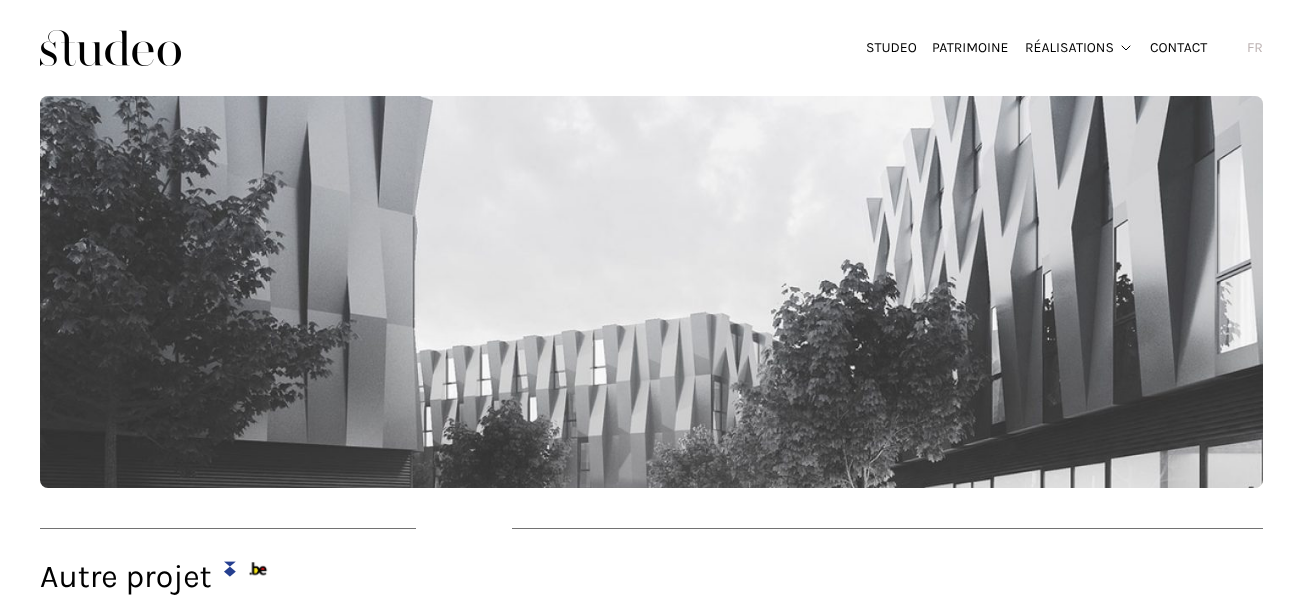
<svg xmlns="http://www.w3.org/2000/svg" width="1303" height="608">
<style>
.a{font:14px Karla;fill:#000}
.b{font:14px Karla;fill:#bcb2b2}
.c{font:32px Karla;fill:#000}
</style>
<rect width="100%" height="100%" fill="#fff"/>
<image href="1.png" x="40" y="30" width="141" height="36"/>
<path fill="none" stroke="#000" stroke-linecap="round" stroke-linejoin="round" d="M1122 46l4 4l4-4"/>
<rect fill="#f8f4e9" x="40" y="96" width="1223" height="392" rx="8"/>
<image href="2.png" x="40" y="96" width="1223" height="392"/>
<path fill="#727272" d="M512 528h751v1H512z"/>
<path fill="#727272" d="M40 528h376v1H40z"/>
<image href="3.png" x="224" y="561" width="12" height="16"/>
<image href="4.png" x="249" y="562" width="19" height="14"/>
<text class="a" x="866" y="52">STUDEO</text>
<text class="a" x="932" y="52">PATRIMOINE</text>
<text class="a" x="1025" y="52">RÉALISATIONS</text>
<text class="a" x="1150" y="52">CONTACT</text>
<text class="b" x="1247" y="52">FR</text>
<text class="c" x="40" y="587">Autre projet</text>
</svg>
